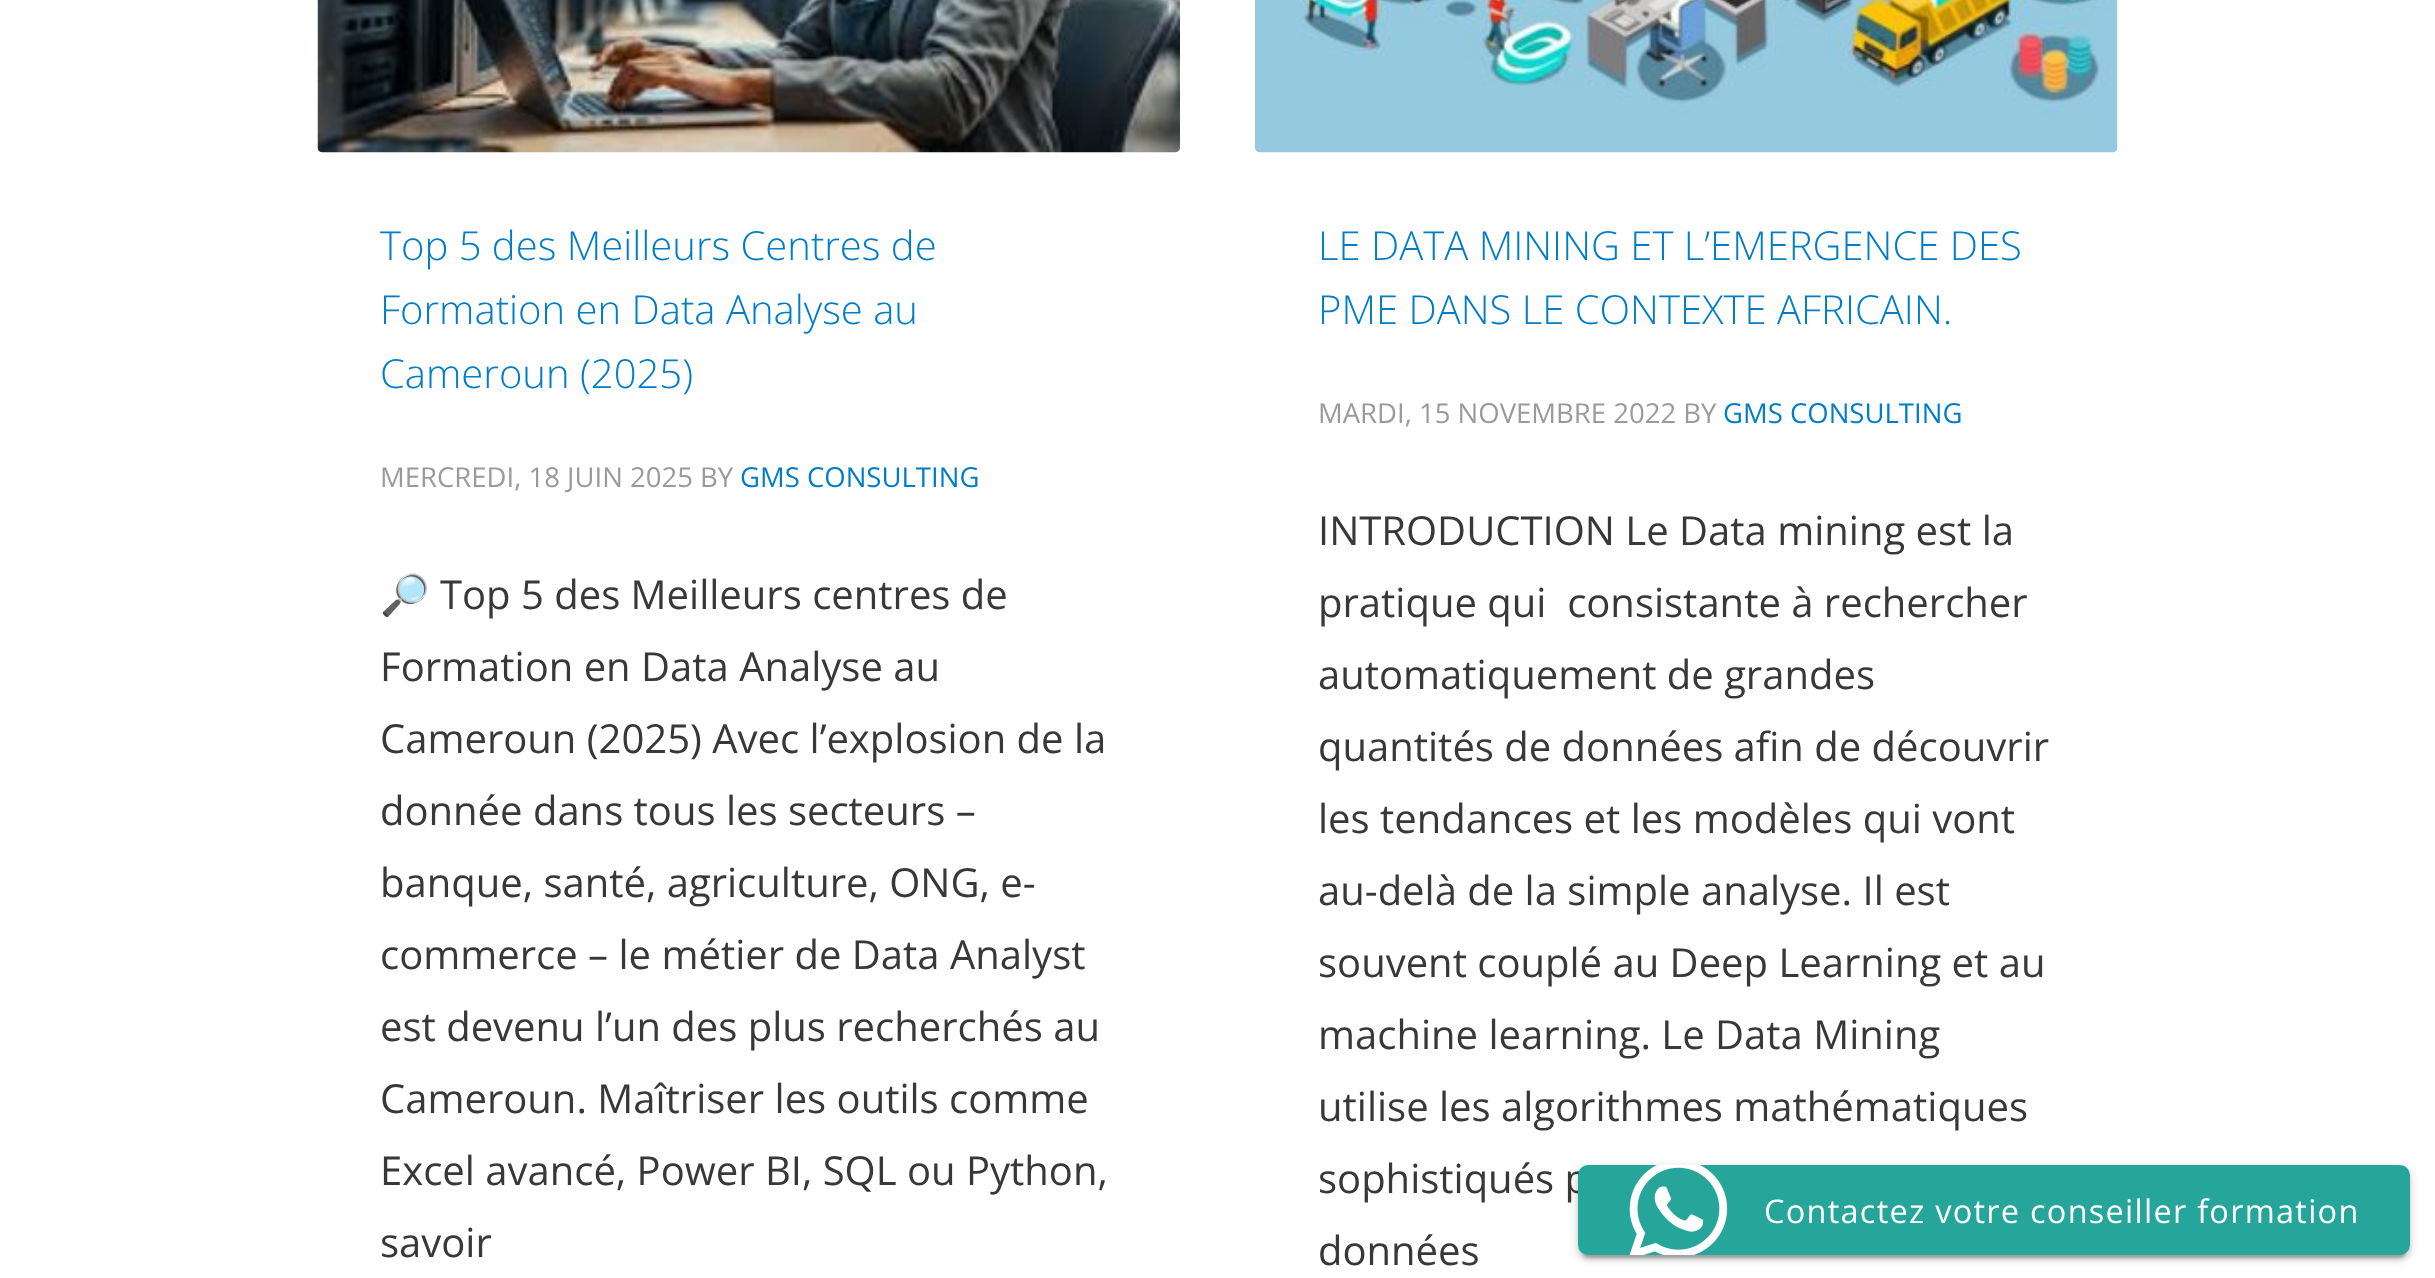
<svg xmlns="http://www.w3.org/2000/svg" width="2435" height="1278">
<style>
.a{font:300 40px Open Sans;fill:#007dc6}
.b{font:27.5px Open Sans;fill:#9a9a9a}
.c{font:27.5px Open Sans;fill:#007dc6}
.d{font:40px Noto Color Emoji;fill:#383838}
.e{font:40px Open Sans;fill:#383838}
.f{font:32.5px Open Sans;letter-spacing:1.25px;fill:#fff}
</style>
<rect width="100%" height="100%" fill="#fff"/>
<image href="1.png" x="317" y="0" width="863" height="153"/>
<image href="2.png" x="1255" y="0" width="863" height="153"/>
<rect fill="#00000033" filter="blur(1px)" x="1583" y="1178" width="822" height="80" rx="5"/>
<rect fill="#0000001f" filter="blur(6px)" x="1578" y="1168" width="832" height="90" rx="10"/>
<rect fill="#00000024" filter="blur(2.5px)" x="1578" y="1170" width="832" height="90" rx="10"/>
<text class="a" x="380" y="260">Top 5 des Meilleurs Centres de</text>
<text class="a" x="380" y="324">Formation en Data Analyse au</text>
<text class="a" x="380" y="388">Cameroun (2025)</text>
<text class="b" x="380" y="487">MERCREDI, 18 JUIN 2025 BY</text>
<text class="c" x="740" y="487">GMS CONSULTING</text>
<text class="d" x="380" y="609">🔎</text>
<text class="e" x="440" y="609">Top 5 des Meilleurs centres de</text>
<text class="e" x="380" y="681">Formation en Data Analyse au</text>
<text class="e" x="380" y="753">Cameroun (2025) Avec l’explosion de la</text>
<text class="e" x="380" y="825">donnée dans tous les secteurs –</text>
<text class="e" x="380" y="897">banque, santé, agriculture, ONG, e-</text>
<text class="e" x="380" y="969">commerce – le métier de Data Analyst</text>
<text class="e" x="380" y="1041">est devenu l’un des plus recherchés au</text>
<text class="e" x="380" y="1113">Cameroun. Maîtriser les outils comme</text>
<text class="e" x="380" y="1185">Excel avancé, Power BI, SQL ou Python,</text>
<text class="e" x="380" y="1257">savoir</text>
<text class="a" x="1318" y="260">LE DATA MINING ET L’EMERGENCE DES</text>
<text class="a" x="1318" y="324">PME DANS LE CONTEXTE AFRICAIN.</text>
<text class="b" x="1318" y="423">MARDI, 15 NOVEMBRE 2022 BY</text>
<text class="c" x="1723" y="423">GMS CONSULTING</text>
<text class="e" x="1318" y="545">INTRODUCTION Le Data mining est la</text>
<text class="e" xml:space="preserve" x="1318" y="617">pratique qui  consistante à rechercher</text>
<text class="e" x="1318" y="689">automatiquement de grandes</text>
<text class="e" x="1318" y="761">quantités de données afin de découvrir</text>
<text class="e" x="1318" y="833">les tendances et les modèles qui vont</text>
<text class="e" x="1318" y="905">au-delà de la simple analyse. Il est</text>
<text class="e" x="1318" y="977">souvent couplé au Deep Learning et au</text>
<text class="e" x="1318" y="1049">machine learning. Le Data Mining</text>
<text class="e" x="1318" y="1121">utilise les algorithmes mathématiques</text>
<text class="e" x="1318" y="1193">sophistiqués p</text>
<text class="e" x="1318" y="1265">données</text>
<rect fill="#26a69a" x="1578" y="1165" width="832" height="90" rx="10"/>
<image href="3.png" x="1629" y="1165" width="99" height="90"/>
<text class="f" x="1764" y="1223">Contactez votre conseiller formation</text>
</svg>
